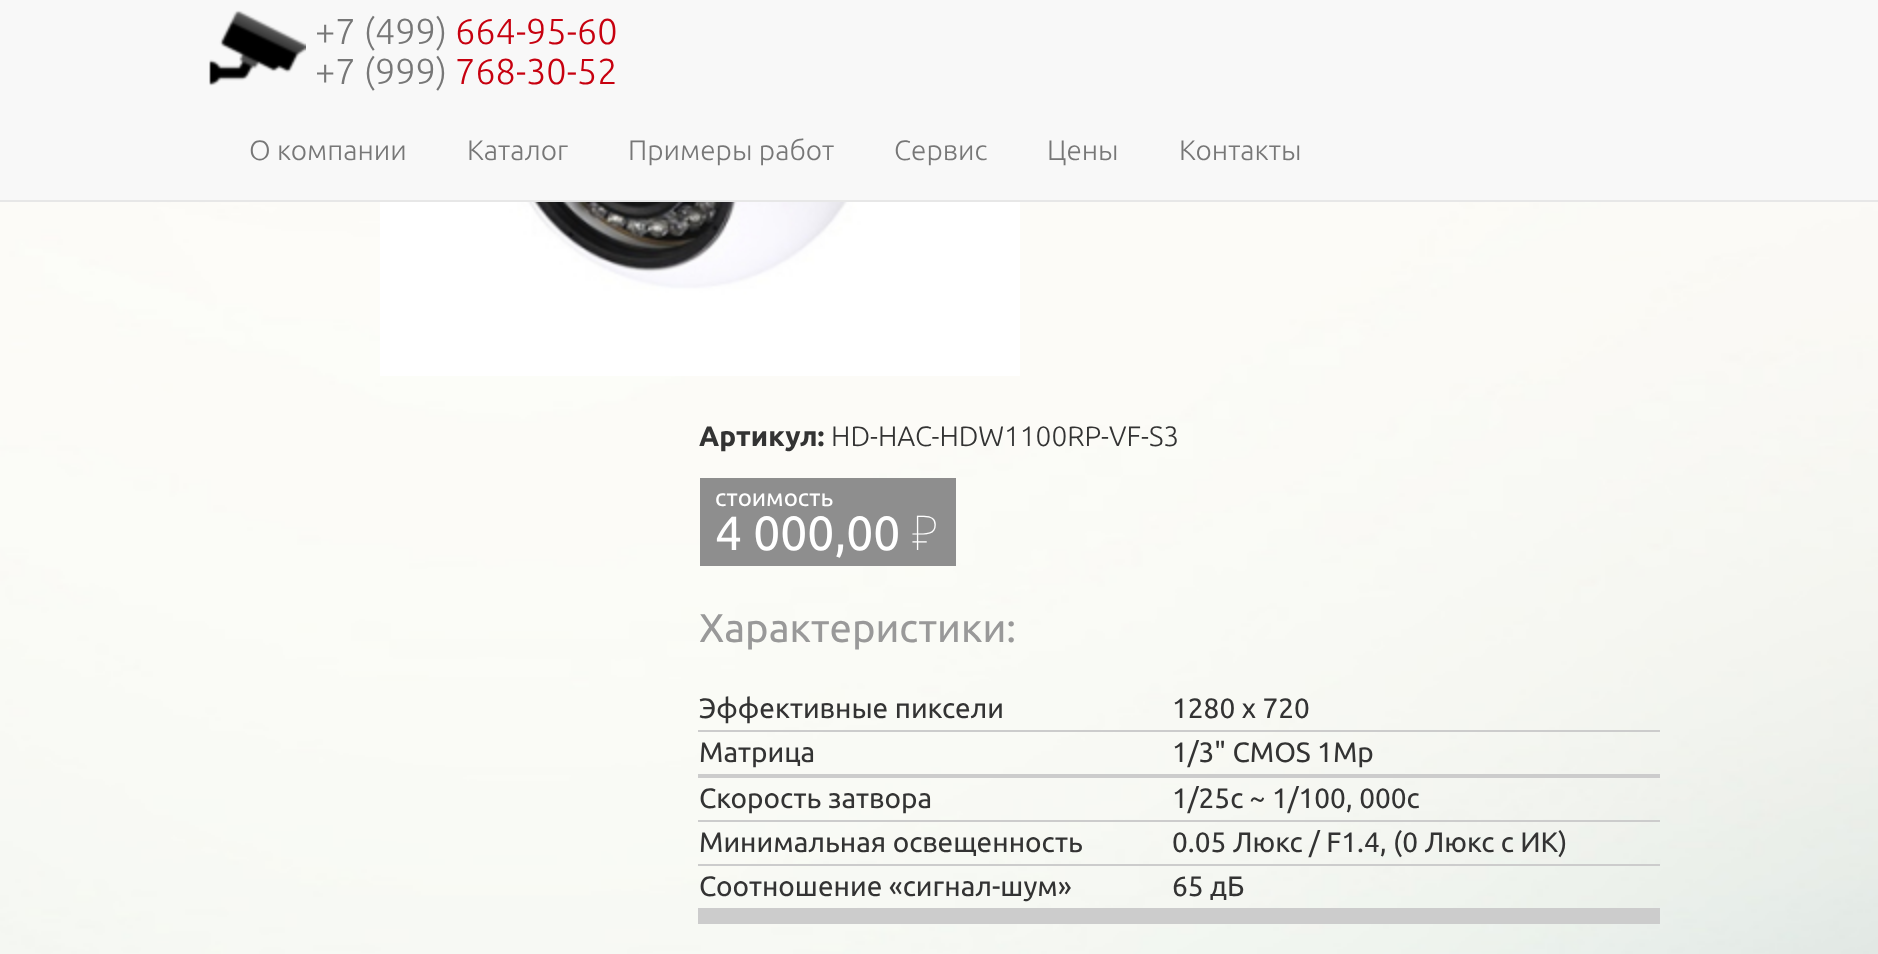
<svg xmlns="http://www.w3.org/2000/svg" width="1878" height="954">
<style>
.a{font:300 36px Ubuntu;fill:#777}
.b{font:300 36px Ubuntu;fill:#c7000f}
.c{font:300 28px Ubuntu;fill:#777}
.d{font:bold 28px Ubuntu;fill:#333}
.e{font:300 28px Ubuntu;fill:#333}
.f{font:24px Ubuntu;fill:#fff}
.g{font:48px Ubuntu;fill:#fff}
.h{font:100 48px Noto Sans;fill:#fff}
.i{font:40px Ubuntu;fill:#999}
.j{font:28px Ubuntu;fill:#333}
</style>
<rect width="100%" height="100%" fill="#fff"/>
<image href="1.png" x="0" y="202" width="1878" height="752"/>
<path fill="#f8f8f8" d="M0 0h1878v200H0z"/>
<path fill="#e7e7e7" d="M0 200h1878v2H0z"/>
<image href="2.png" x="209" y="10" width="97" height="76"/>
<image href="3.png" x="380" y="202" width="640" height="174"/>
<path fill="#8e8e8e" d="M700 478h256v88H700z"/>
<path fill="#ccc" d="M698 730h962v2H698z"/>
<path fill="#ccc" d="M698 774h962v2H698z"/>
<path fill="#ccc" d="M698 776h962v2H698z"/>
<path fill="#ccc" d="M698 820h962v2H698z"/>
<path fill="#ccc" d="M698 864h962v2H698z"/>
<path fill="#ccc" d="M698 908h962v2H698z"/>
<path fill="#ccc" d="M698 910h962v14H698z"/>
<text class="a" x="315" y="44">+7 (499)</text>
<text class="b" x="455" y="44">664-95-60</text>
<text class="a" x="315" y="84">+7 (999)</text>
<text class="b" x="455" y="84">768-30-52</text>
<text class="c" x="249" y="160">О компании</text>
<text class="c" x="467" y="160">Каталог</text>
<text class="c" x="628" y="160">Примеры работ</text>
<text class="c" x="894" y="160">Сервис</text>
<text class="c" x="1047" y="160">Цены</text>
<text class="c" x="1179" y="160">Контакты</text>
<text class="d" x="699" y="446">Артикул:</text>
<text class="e" x="831" y="446">HD-HAC-HDW1100RP-VF-S3</text>
<text class="f" x="715" y="506">стоимость</text>
<text class="g" x="715" y="550">4 000,00</text>
<text class="h" x="912" y="550">₽</text>
<text class="i" x="699" y="642">Характеристики:</text>
<text class="j" x="699" y="718">Эффективные пиксели</text>
<text class="j" x="1172" y="718">1280 х 720</text>
<text class="j" x="699" y="762">Матрица</text>
<text class="j" x="1172" y="762">1/3" CMOS 1Мр</text>
<text class="j" x="699" y="808">Скорость затвора</text>
<text class="j" x="1172" y="808">1/25с ~ 1/100, 000с</text>
<text class="j" x="699" y="852">Минимальная освещенность</text>
<text class="j" x="1172" y="852">0.05 Люкс / F1.4, (0 Люкс с ИК)</text>
<text class="j" x="699" y="896">Соотношение «сигнал-шум»</text>
<text class="j" x="1172" y="896">65 дБ</text>
</svg>
